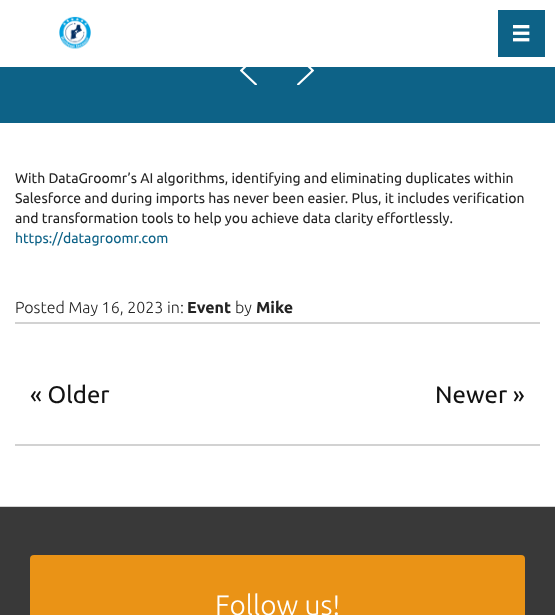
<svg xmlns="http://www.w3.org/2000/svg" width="555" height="615">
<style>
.a{font:14px Ubuntu;fill:#242424}
.b{font:14px Ubuntu;fill:#0d6287}
.c{font:300 16px Ubuntu;fill:#242424}
.d{font:bold 16px Ubuntu;fill:#242424}
.e{font:24px Ubuntu;fill:#121212}
.f{font:300 28px Ubuntu;fill:#fff}
</style>
<rect width="100%" height="100%" fill="#fff"/>
<image href="1.png" x="59" y="16" width="32" height="33"/>
<path fill="#0d6287" d="M498 10h47v47H498z"/>
<image href="2.png" x="513" y="25" width="17" height="17"/>
<path fill="#0d6287" d="M0 67h555v56H0z"/>
<image href="3.png" x="240" y="67" width="17" height="18"/>
<image href="4.png" x="297" y="67" width="17" height="18"/>
<path fill="#d2d2d2" d="M15 322h525v2H15z"/>
<path fill="#d2d2d2" d="M15 444h525v2H15z"/>
<path fill="#393939" d="M0 507h555v108H0z"/>
<path fill="#d3d3d3" d="M0 506h555v1H0z"/>
<rect fill="#ea9316" x="30" y="555" width="495" height="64" rx="4"/>
<text class="a" x="15" y="183">With DataGroomr’s AI algorithms, identifying and eliminating duplicates within</text>
<text class="a" x="15" y="203">Salesforce and during imports has never been easier. Plus, it includes verification</text>
<text class="a" x="15" y="223">and transformation tools to help you achieve data clarity effortlessly.</text>
<text class="b" x="15" y="243">https://datagroomr.com</text>
<text class="c" x="15" y="313">Posted May 16, 2023 in:</text>
<text class="d" x="187" y="313">Event</text>
<text class="c" x="235" y="313">by</text>
<text class="d" x="256" y="313">Mike</text>
<text class="e" x="30" y="403">« Older</text>
<text class="e" x="435" y="403">Newer »</text>
<text class="f" x="215" y="615">Follow us!</text>
</svg>
